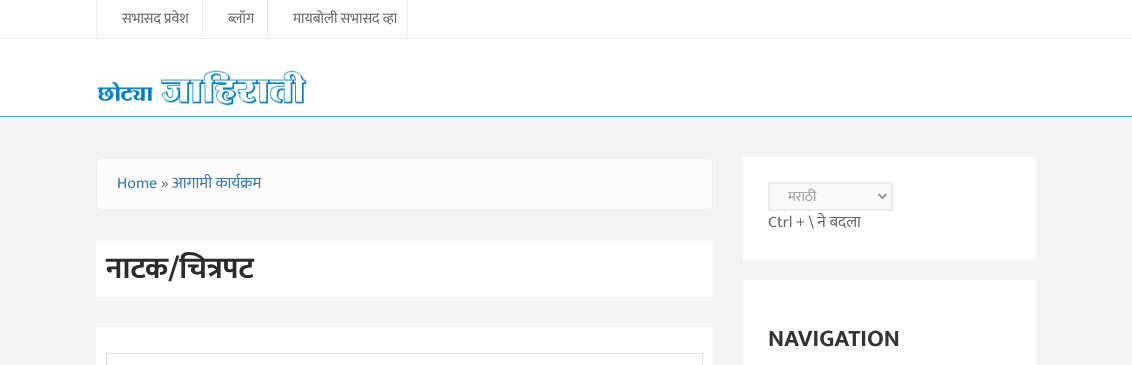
<svg xmlns="http://www.w3.org/2000/svg" width="1132" height="365">
<style>
.a{font:14.5px Ek Mukta;fill:#666}
.b{font:16px Ek Mukta;fill:#337ab7}
.c{font:16px Ek Mukta;fill:#666}
.d{font:bold 30px Ek Mukta;fill:#2b2b2b}
.e{font:14px Ek Mukta;fill:#999}
.f{font:bold 24px Ek Mukta;fill:#333}
</style>
<rect width="100%" height="100%" fill="#fff"/>
<path fill="#ebebeb" d="M0 38h1132v1H0z"/>
<path fill="#ebebeb" d="M96 0h1v38H96z"/>
<path fill="#ebebeb" d="M202 0h1v38H202z"/>
<path fill="#ebebeb" d="M407 0h1v38H407z"/>
<path fill="#ebebeb" d="M267 0h1v38H267z"/>
<image href="1.png" x="97" y="70" width="210" height="36"/>
<path fill="#00bff3" d="M0 116h1132v1H0z"/>
<path fill="#f3f3f3" d="M0 117h1132v248H0z"/>
<rect fill="#fcfcfc" stroke="#eaeaea" x="96.5" y="157.5" width="616" height="53" rx="5.5"/>
<path fill="#fff" d="M96 241h617v56H96z"/>
<path fill="#fff" d="M96 327h617v38H96z"/>
<path fill="#dfdfdf" d="M106 353h597v1H106z"/>
<path fill="#dfdfdf" d="M702 353h1v12H702z"/>
<path fill="#dfdfdf" d="M106 353h1v12H106z"/>
<path fill="#fff" d="M743 157h293v103H743z"/>
<path fill="#f9f9f9" stroke="#eaeaea" stroke-width="2" d="M769 183h123v27H769z"/>
<path fill="none" stroke="#999" stroke-width="2" d="M878.5 194l4 4l4-4"/>
<path fill="#fff" d="M743 280h293v85H743z"/>
<text class="a" x="122" y="23">सभासद प्रवेश</text>
<text class="a" x="228" y="23">ब्लॉग</text>
<text class="a" x="293" y="23">मायबोली सभासद व्हा</text>
<text class="b" x="117" y="188">Home</text>
<text class="c" x="161" y="188">»</text>
<text class="b" x="172" y="188">आगामी कार्यक्रम</text>
<text class="d" x="106" y="278">नाटक/चित्रपट</text>
<text class="e" x="788" y="201">मराठी</text>
<text class="c" x="768" y="227">Ctrl + \ ने बदला</text>
<text class="f" x="768" y="346">NAVIGATION</text>
</svg>
